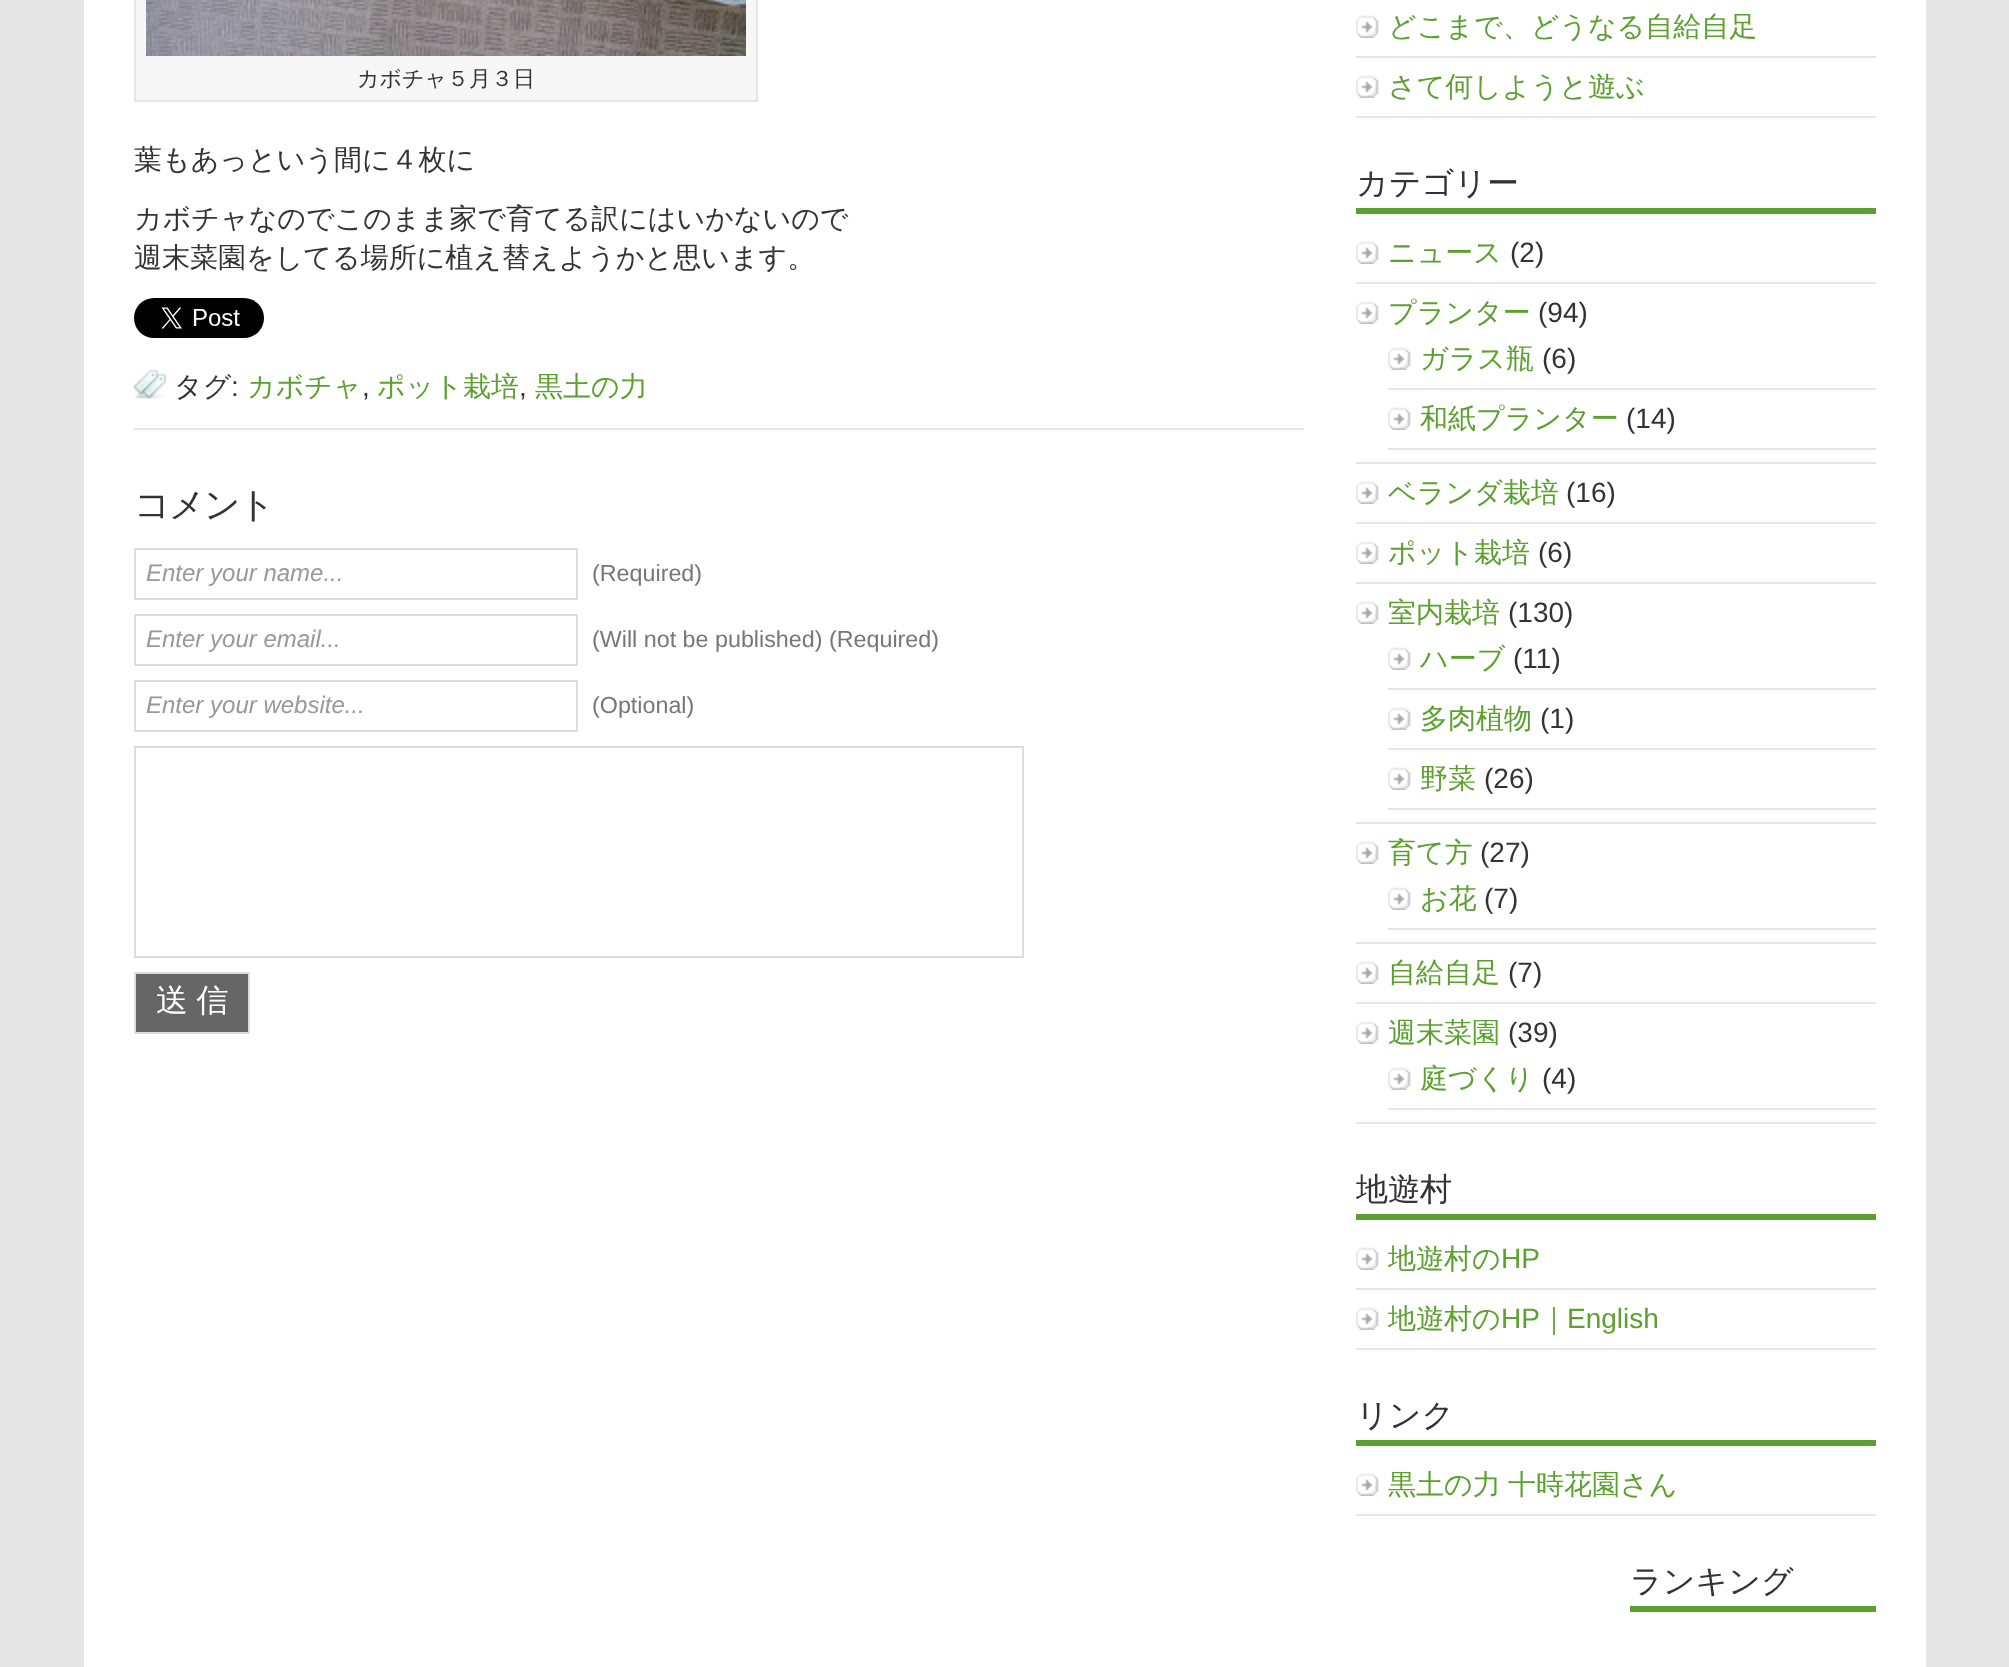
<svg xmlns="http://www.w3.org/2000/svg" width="2009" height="1667">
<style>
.a{font:500 22px WenQuanYi Zen Hei;fill:#333}
.b{font:500 28px WenQuanYi Zen Hei;fill:#333}
.c{font:28px Liberation Sans;fill:#333}
.d{font:500 28px WenQuanYi Zen Hei;fill:#5ca12f}
.e{font:500 36px WenQuanYi Zen Hei;letter-spacing:-2px;fill:#333}
.f{font:italic 24px Liberation Sans;fill:#999}
.g{font:23.3px Liberation Sans;fill:#777}
.h{font:500 32px WenQuanYi Zen Hei;fill:#fff}
.i{font:500 32px WenQuanYi Zen Hei;fill:#333}
.j{font:28px Liberation Sans;fill:#5ca12f}
</style>
<rect width="100%" height="100%" fill="#e6e6e6"/>
<path fill="#fff" d="M84 0h1842v1667H84z"/>
<path fill="#f7f7f7" stroke="#e6e6e6" stroke-width="2" d="M135 -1h622v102H135z"/>
<image href="1.png" x="146" y="0" width="600" height="56"/>
<image href="2.png" x="134" y="298" width="130" height="40"/>
<image href="3.png" x="134" y="369" width="32" height="30"/>
<path fill="#e6e6e6" d="M134 428h1170v2H134z"/>
<path fill="none" stroke="#ddd" stroke-width="2" d="M135 549h442v50H135z"/>
<path fill="none" stroke="#ddd" stroke-width="2" d="M135 615h442v50H135z"/>
<path fill="none" stroke="#ddd" stroke-width="2" d="M135 681h442v50H135z"/>
<path fill="none" stroke="#ddd" stroke-width="2" d="M135 747h888v210H135z"/>
<path fill="#666" stroke="#ddd" stroke-width="2" d="M135 973h114v60H135z"/>
<image href="4.png" x="1356" y="15" width="23" height="23"/>
<path fill="#e6e6e6" d="M1356 56h520v2H1356z"/>
<image href="4.png" x="1356" y="75" width="23" height="23"/>
<path fill="#e6e6e6" d="M1356 116h520v2H1356z"/>
<path fill="#5ca12f" d="M1356 208h520v6H1356z"/>
<image href="4.png" x="1356" y="241" width="23" height="23"/>
<path fill="#e6e6e6" d="M1356 282h520v2H1356z"/>
<image href="4.png" x="1356" y="301" width="23" height="23"/>
<path fill="#e6e6e6" d="M1356 462h520v2H1356z"/>
<image href="4.png" x="1388" y="347" width="23" height="23"/>
<path fill="#e6e6e6" d="M1388 388h488v2H1388z"/>
<image href="4.png" x="1388" y="407" width="23" height="23"/>
<path fill="#e6e6e6" d="M1388 448h488v2H1388z"/>
<image href="4.png" x="1356" y="481" width="23" height="23"/>
<path fill="#e6e6e6" d="M1356 522h520v2H1356z"/>
<image href="4.png" x="1356" y="541" width="23" height="23"/>
<path fill="#e6e6e6" d="M1356 582h520v2H1356z"/>
<image href="4.png" x="1356" y="601" width="23" height="23"/>
<path fill="#e6e6e6" d="M1356 822h520v2H1356z"/>
<image href="4.png" x="1388" y="647" width="23" height="23"/>
<path fill="#e6e6e6" d="M1388 688h488v2H1388z"/>
<image href="4.png" x="1388" y="707" width="23" height="23"/>
<path fill="#e6e6e6" d="M1388 748h488v2H1388z"/>
<image href="4.png" x="1388" y="767" width="23" height="23"/>
<path fill="#e6e6e6" d="M1388 808h488v2H1388z"/>
<image href="4.png" x="1356" y="841" width="23" height="23"/>
<path fill="#e6e6e6" d="M1356 942h520v2H1356z"/>
<image href="4.png" x="1388" y="887" width="23" height="23"/>
<path fill="#e6e6e6" d="M1388 928h488v2H1388z"/>
<image href="4.png" x="1356" y="961" width="23" height="23"/>
<path fill="#e6e6e6" d="M1356 1002h520v2H1356z"/>
<image href="4.png" x="1356" y="1021" width="23" height="23"/>
<path fill="#e6e6e6" d="M1356 1122h520v2H1356z"/>
<image href="4.png" x="1388" y="1067" width="23" height="23"/>
<path fill="#e6e6e6" d="M1388 1108h488v2H1388z"/>
<path fill="#5ca12f" d="M1356 1214h520v6H1356z"/>
<image href="4.png" x="1356" y="1247" width="23" height="23"/>
<path fill="#e6e6e6" d="M1356 1288h520v2H1356z"/>
<image href="4.png" x="1356" y="1307" width="23" height="23"/>
<path fill="#e6e6e6" d="M1356 1348h520v2H1356z"/>
<path fill="#5ca12f" d="M1356 1440h520v6H1356z"/>
<image href="4.png" x="1356" y="1473" width="23" height="23"/>
<path fill="#e6e6e6" d="M1356 1514h520v2H1356z"/>
<path fill="#5ca12f" d="M1630 1606h246v6H1630z"/>
<text class="a" x="357" y="86">カボチャ５月３日</text>
<text class="b" x="134" y="169">葉もあっという間に４枚に</text>
<text class="b" x="134" y="228">カボチャなのでこのまま家で育てる訳にはいかないので</text>
<text class="b" x="134" y="267">週末菜園をしてる場所に植え替えようかと思います。</text>
<text class="b" x="174" y="396">タグ</text>
<text class="c" x="231" y="396">:</text>
<text class="d" x="247" y="396">カボチャ</text>
<text class="c" x="362" y="396">,</text>
<text class="d" x="377" y="396">ポット栽培</text>
<text class="c" x="519" y="396">,</text>
<text class="d" x="535" y="396">黒土の力</text>
<text class="e" x="134" y="517">コメント</text>
<text class="f" x="146" y="581">Enter your name...</text>
<text class="g" x="592" y="581">(Required)</text>
<text class="f" x="146" y="647">Enter your email...</text>
<text class="g" x="592" y="647">(Will not be published) (Required)</text>
<text class="f" x="146" y="713">Enter your website...</text>
<text class="g" x="592" y="713">(Optional)</text>
<text class="h" x="156" y="1011" word-spacing="-1">送 信</text>
<text class="d" x="1388" y="36">どこまで、どうなる自給自足</text>
<text class="d" x="1388" y="96">さて何しようと遊ぶ</text>
<text class="i" x="1356" y="194">カテゴリー</text>
<text class="d" x="1388" y="262">ニュース</text>
<text class="c" x="1510" y="262">(2)</text>
<text class="d" x="1388" y="322">プランター</text>
<text class="c" x="1538" y="322">(94)</text>
<text class="d" x="1420" y="368">ガラス瓶</text>
<text class="c" x="1542" y="368">(6)</text>
<text class="d" x="1420" y="428">和紙プランター</text>
<text class="c" x="1626" y="428">(14)</text>
<text class="d" x="1388" y="502">ベランダ栽培</text>
<text class="c" x="1566" y="502">(16)</text>
<text class="d" x="1388" y="562">ポット栽培</text>
<text class="c" x="1538" y="562">(6)</text>
<text class="d" x="1388" y="622">室内栽培</text>
<text class="c" x="1508" y="622">(130)</text>
<text class="d" x="1420" y="668">ハーブ</text>
<text class="c" x="1513" y="668">(11)</text>
<text class="d" x="1420" y="728">多肉植物</text>
<text class="c" x="1540" y="728">(1)</text>
<text class="d" x="1420" y="788">野菜</text>
<text class="c" x="1484" y="788">(26)</text>
<text class="d" x="1388" y="862">育て方</text>
<text class="c" x="1480" y="862">(27)</text>
<text class="d" x="1420" y="908">お花</text>
<text class="c" x="1484" y="908">(7)</text>
<text class="d" x="1388" y="982">自給自足</text>
<text class="c" x="1508" y="982">(7)</text>
<text class="d" x="1388" y="1042">週末菜園</text>
<text class="c" x="1508" y="1042">(39)</text>
<text class="d" x="1420" y="1088">庭づくり</text>
<text class="c" x="1542" y="1088">(4)</text>
<text class="i" x="1356" y="1200">地遊村</text>
<text class="d" x="1388" y="1268">地遊村の</text>
<text class="j" x="1501" y="1268">HP</text>
<text class="d" x="1388" y="1328">地遊村の</text>
<text class="j" x="1501" y="1328">HP</text>
<text class="d" x="1540" y="1328">｜</text>
<text class="j" x="1567" y="1328">English</text>
<text class="i" x="1356" y="1426">リンク</text>
<text class="d" x="1388" y="1494" word-spacing="-1">黒土の力 十時花園さん</text>
<text class="i" x="1630" y="1592">ランキング</text>
</svg>
